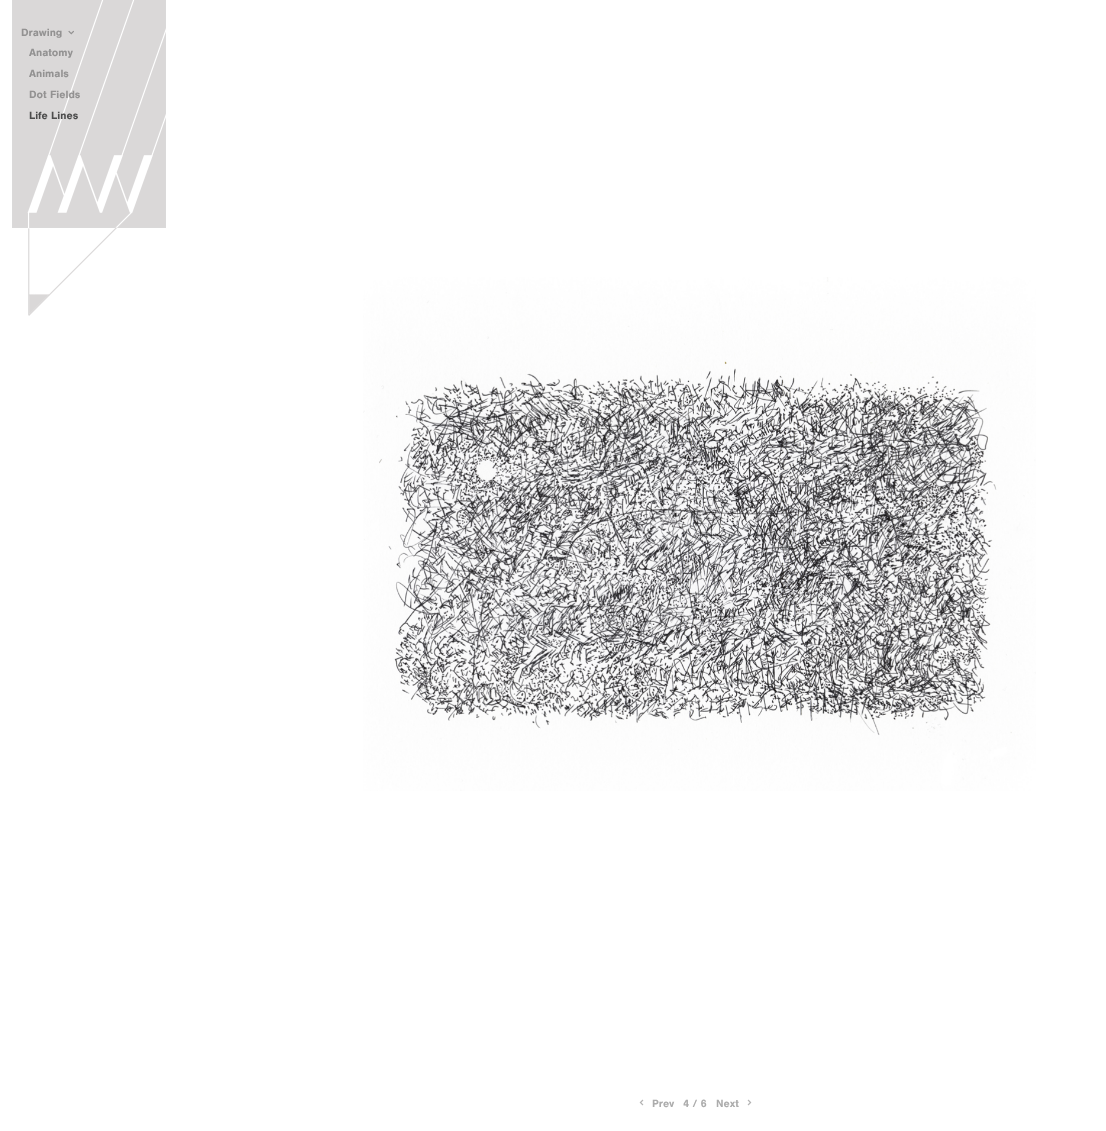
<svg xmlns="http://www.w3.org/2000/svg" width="1106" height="1131">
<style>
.a{font:bold 11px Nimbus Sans;fill:#939292}
.b{font:bold 11px Nimbus Sans;fill:#4c4c4c}
.c{font:bold 11px Nimbus Sans;fill:#acacac}
</style>
<rect width="100%" height="100%" fill="#fff"/>
<image href="1.png" x="12" y="0" width="154" height="316"/>
<image href="2.png" x="68" y="30" width="6" height="5"/>
<image href="3.png" x="363" y="277" width="673" height="514"/>
<image href="4.png" x="639" y="1099" width="5" height="7"/>
<image href="5.png" x="747" y="1099" width="5" height="7"/>
<text class="a" x="21" y="36">Drawing</text>
<text class="a" x="29" y="56">Anatomy</text>
<text class="a" x="29" y="77">Animals</text>
<text class="a" x="29" y="98">Dot Fields</text>
<text class="b" x="29" y="119">Life Lines</text>
<text class="c" x="652" y="1107">Prev</text>
<text class="c" x="683" y="1107">4 / 6</text>
<text class="c" x="716" y="1107">Next</text>
</svg>
